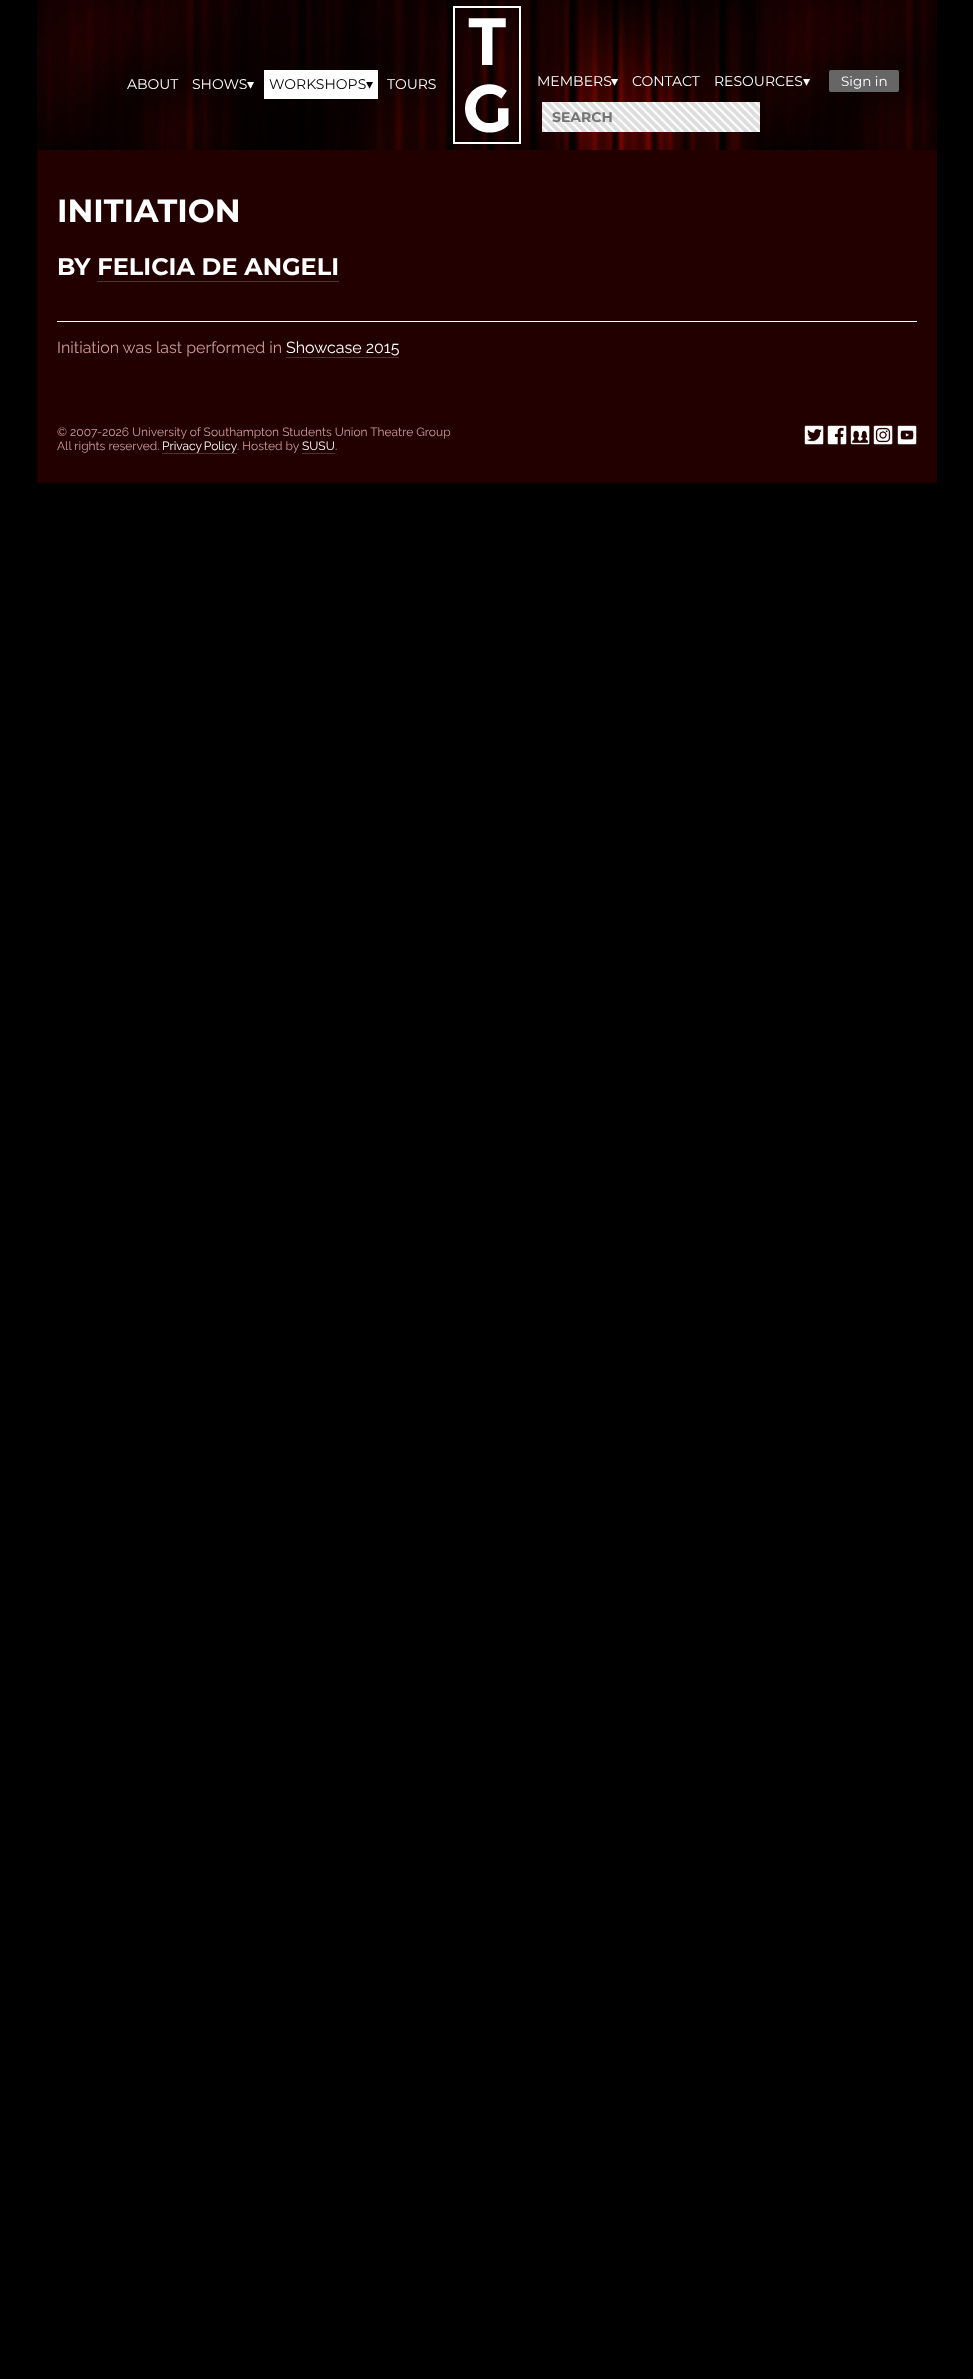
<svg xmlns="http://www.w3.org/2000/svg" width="973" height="2379">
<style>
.a{font:14px Montserrat;fill:#fff}
.b{font:14px DejaVu Sans;fill:#fff}
.c{font:14px Montserrat;fill:#000}
.d{font:14px DejaVu Sans;fill:#000}
.e{font:13.5px Montserrat;fill:#fff}
.f{font:bold 14px Montserrat;fill:#757575}
.g{font:bold 32px Montserrat;fill:#fff}
.h{font:bold 24px Montserrat;fill:#fff}
.i{font:100 16px Raleway;fill:#cc9b9b}
.j{font:100 16px Raleway;fill:#fff}
.k{font:100 12px Raleway;fill:#cc9b9b}
.l{font:100 12px Raleway;fill:#fff}
</style>
<rect width="100%" height="100%" fill="#000"/>
<path fill="#200" d="M37 150h900v333H37z"/>
<image href="1.png" x="37" y="0" width="900" height="150"/>
<path fill="#fff" d="M264 70h114v29H264z"/>
<image href="2.png" x="453" y="6" width="68" height="138"/>
<rect fill="#666" x="829" y="70" width="70" height="22" rx="2"/>
<path fill="#ddd" d="M542 102h218v30H542z"/>
<image href="3.png" x="542" y="102" width="218" height="30"/>
<path fill="#4e3333" d="M97 281h242v1H97z"/>
<path fill="#fff" d="M57 321h860v1H57z"/>
<path fill="#4e3333" d="M286 357h113v1H286z"/>
<path fill="#4e3333" d="M162 453h75v1H162z"/>
<path fill="#4e3333" d="M302 453h33v1H302z"/>
<image href="4.png" x="804" y="425" width="20" height="20"/>
<image href="5.png" x="827" y="425" width="20" height="20"/>
<image href="6.png" x="850" y="425" width="20" height="20"/>
<image href="7.png" x="873" y="425" width="20" height="20"/>
<image href="8.png" x="897" y="425" width="20" height="20"/>
<text class="a" x="127" y="89">ABOUT</text>
<text class="a" x="192" y="89">SHOWS</text>
<text class="b" x="247" y="89">▾</text>
<text class="c" x="269" y="89">WORKSHOPS</text>
<text class="d" x="366" y="89">▾</text>
<text class="a" x="387" y="89">TOURS</text>
<text class="a" x="537" y="86">MEMBERS</text>
<text class="b" x="611" y="86">▾</text>
<text class="a" x="632" y="86">CONTACT</text>
<text class="a" x="714" y="86">RESOURCES</text>
<text class="b" x="803" y="86">▾</text>
<text class="e" x="841" y="86">Sign in</text>
<text class="f" x="552" y="122">SEARCH</text>
<text class="g" x="57" y="222">INITIATION</text>
<text class="h" x="57" y="275">BY FELICIA DE ANGELI</text>
<text class="i" x="57" y="353">Initiation was last performed in</text>
<text class="j" x="286" y="353">Showcase 2015</text>
<text class="k" x="57" y="436">© 2007-2026 University of Southampton Students Union Theatre Group</text>
<text class="k" x="57" y="450">All rights reserved.</text>
<text class="l" x="162" y="450" word-spacing="-1">Privacy Policy</text>
<text class="k" x="237" y="450">. Hosted by</text>
<text class="l" x="302" y="450">SUSU</text>
<text class="k" x="335" y="450">.</text>
</svg>
